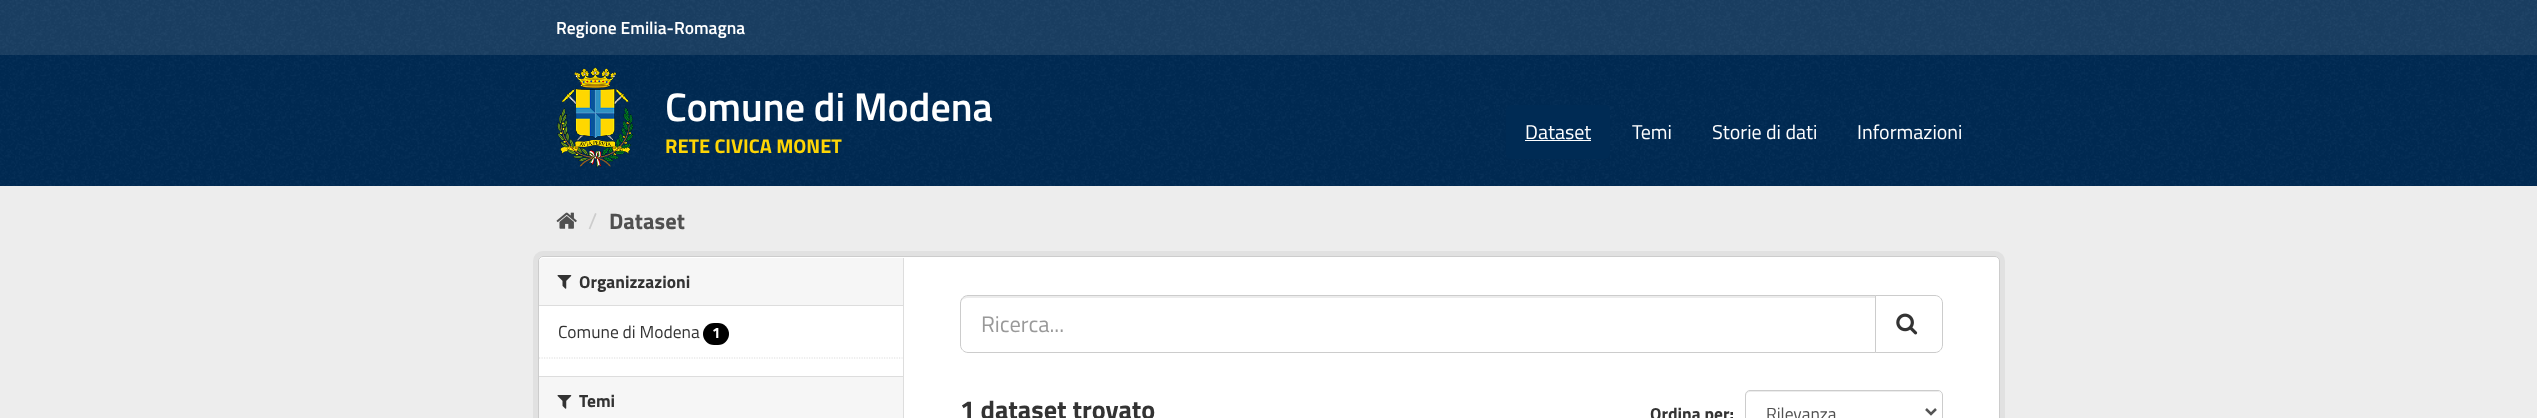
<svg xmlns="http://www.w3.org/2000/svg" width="2537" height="418">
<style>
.a{font:600 17.5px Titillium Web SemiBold;fill:#fff}
.b{font:600 40px Titillium Web SemiBold;fill:#fff}
.c{font:bold 20px Titillium Web;fill:#fed505}
.d{font:20px Titillium Web;fill:#fff}
.e{font:22.5px Titillium Web;fill:#ccc}
.f{font:bold 22.5px Titillium Web;fill:#505050}
.g{font:bold 17.5px Titillium Web;fill:#333}
.h{font:17.5px Titillium Web;fill:#333}
.i{font:bold 15px Titillium Web;fill:#fff}
.j{font:22.5px Titillium Web;fill:#999}
.k{font:bold 26.25px Titillium Web;fill:#333}
.l{font:17.5px Titillium Web;fill:#505050}
</style>
<rect width="100%" height="100%" fill="#1a3f64"/>
<image href="1.png" x="0" y="0" width="2537" height="55"/>
<path fill="#002b54" d="M0 55h2537v131H0z"/>
<image href="2.png" x="0" y="55" width="2537" height="131"/>
<image href="3.png" x="557" y="67" width="77" height="101"/>
<rect fill="#002b54" x="1506" y="105" width="104" height="54" rx="5"/>
<path fill="#fff" d="M1525 140h66v1H1525z"/>
<path fill="#ededed" d="M0 186h2537v232H0z"/>
<image href="4.png" x="556" y="212" width="21" height="17"/>
<rect fill="none" stroke="#e1e1e1" stroke-width="5" x="535.5" y="253.5" width="1467" height="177" rx="7.5"/>
<rect fill="#fff" stroke="#ccc" x="538.5" y="256.5" width="1461" height="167" rx="4.5"/>
<path fill="#f6f6f6" d="M543 258h360v48h-364v-44c0-2 2-4 4-4z"/>
<path fill="#ddd" d="M539 305h364v1H539z"/>
<image href="5.png" x="557" y="275" width="15" height="14"/>
<rect fill="#000" x="703" y="323" width="26" height="22" rx="11"/>
<path fill="none" stroke="#ddd" stroke-width="1.2" stroke-dasharray="1.25 1.25" d="M539 358h363.5"/>
<path fill="#f6f6f6" d="M539 377h364v41H539z"/>
<path fill="#ddd" d="M539 376h364v1H539z"/>
<image href="5.png" x="557" y="395" width="15" height="14"/>
<path fill="#ddd" d="M903 258h1v160H903z"/>
<path fill="#ececec" d="M968 298h907v-2h-908c-5 0-6 4-6 8c0-4 3-6 7-6z"/>
<path fill="none" stroke="#ccc" d="M968 295.5h907.5v57h-907.5c-4 0-7.5-3.5-7.5-7.5v-42c0-4 3.5-7.5 7.5-7.5z"/>
<path fill="#fff" stroke="#ccc" d="M1875.5 295.5h59.5c4 0 7.5 3.5 7.5 7.5v42c0 4-3.5 7.5-7.5 7.5h-59.5z"/>
<image href="6.png" x="1896" y="313" width="22" height="22"/>
<path fill="#ececec" d="M1750 392h188c2 0 3 2 3 4v-1c0-2-2-4-4-4h-187c-2 0-4 2-4 4v1c0-2 2-4 4-4z"/>
<rect fill="none" stroke="#ccc" x="1745.5" y="390.5" width="197" height="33" rx="4.5"/>
<path fill="none" stroke="#555" stroke-width="2.5" d="M1926 409l5 5l5-5"/>
<text class="a" x="556" y="34">Regione Emilia-Romagna</text>
<text class="b" x="665" y="121">Comune di Modena</text>
<text class="c" x="665" y="153">RETE CIVICA MONET</text>
<text class="d" x="1525" y="139">Dataset</text>
<text class="d" x="1632" y="139">Temi</text>
<text class="d" x="1712" y="139">Storie di dati</text>
<text class="d" x="1857" y="139">Informazioni</text>
<text class="e" x="588" y="229">/</text>
<text class="f" x="609" y="229">Dataset</text>
<text class="g" x="579" y="288">Organizzazioni</text>
<text class="h" x="558" y="338">Comune di Modena</text>
<text class="i" x="712" y="338">1</text>
<text class="g" x="579" y="407">Temi</text>
<text class="j" x="981" y="332">Ricerca...</text>
<text class="k" x="960" y="419">1 dataset trovato</text>
<text class="g" x="1650" y="420">Ordina per:</text>
<text class="l" x="1766" y="420">Rilevanza</text>
</svg>
